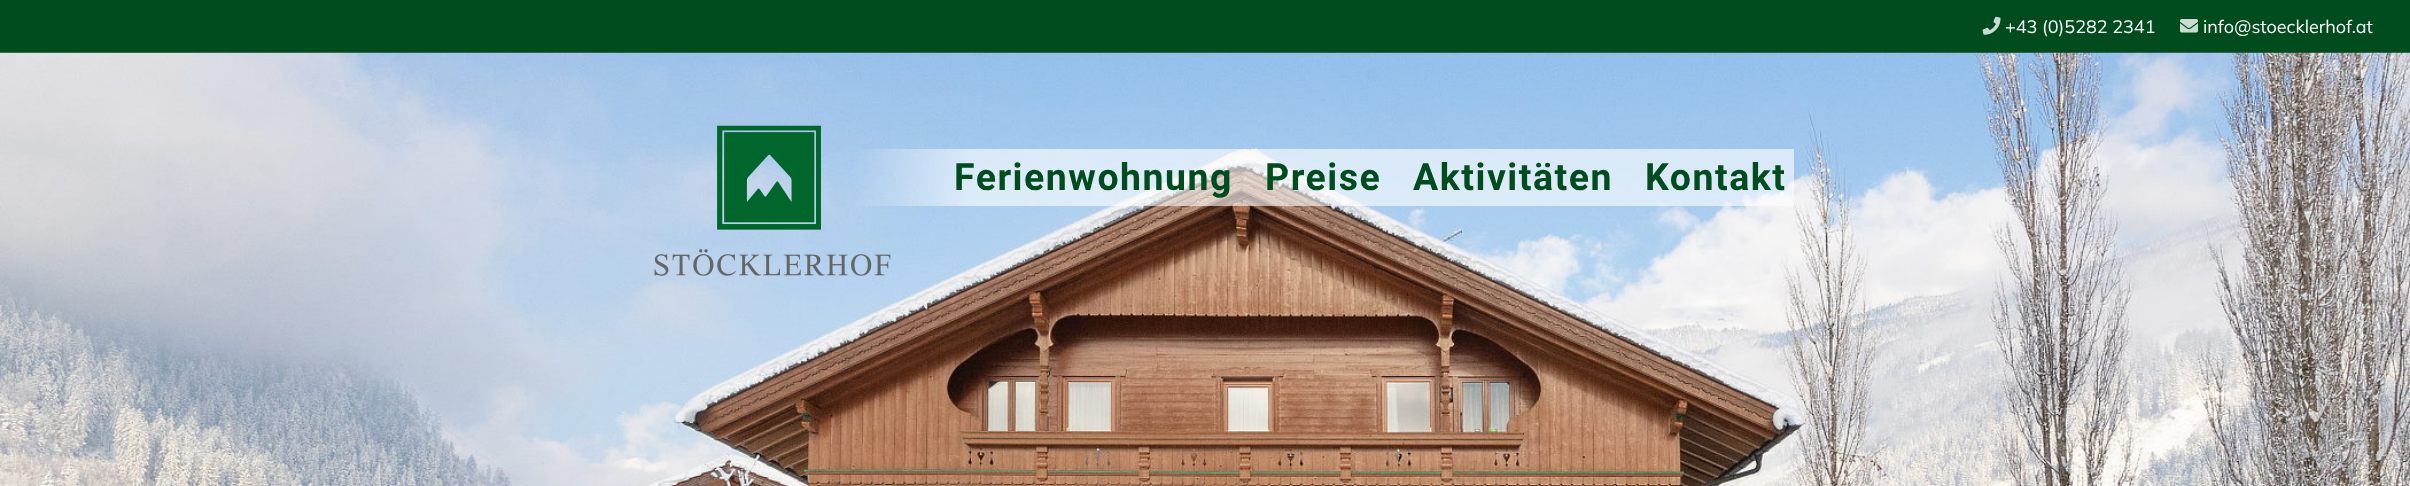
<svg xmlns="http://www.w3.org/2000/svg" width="2410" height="486">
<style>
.a{font:18px Mulish;fill:#fff}
.b{font:bold 37.5px Roboto;letter-spacing:1.5px;fill:#004c1e}
</style>
<rect width="100%" height="100%" fill="#004c1e"/>
<image href="1.png" x="1982" y="16" width="19" height="19"/>
<image href="2.png" x="2180" y="19" width="18" height="14"/>
<image href="3.png" x="0" y="52" width="2410" height="434"/>
<image href="4.png" x="654" y="125" width="237" height="151"/>
<text class="a" x="2005" y="33">+43 (0)5282 2341</text>
<text class="a" x="2203" y="33">info@stoecklerhof.at</text>
<text class="b" x="954" y="190">Ferienwohnung</text>
<text class="b" x="1265" y="190">Preise</text>
<text class="b" x="1413" y="190">Aktivitäten</text>
<text class="b" x="1645" y="190">Kontakt</text>
</svg>
